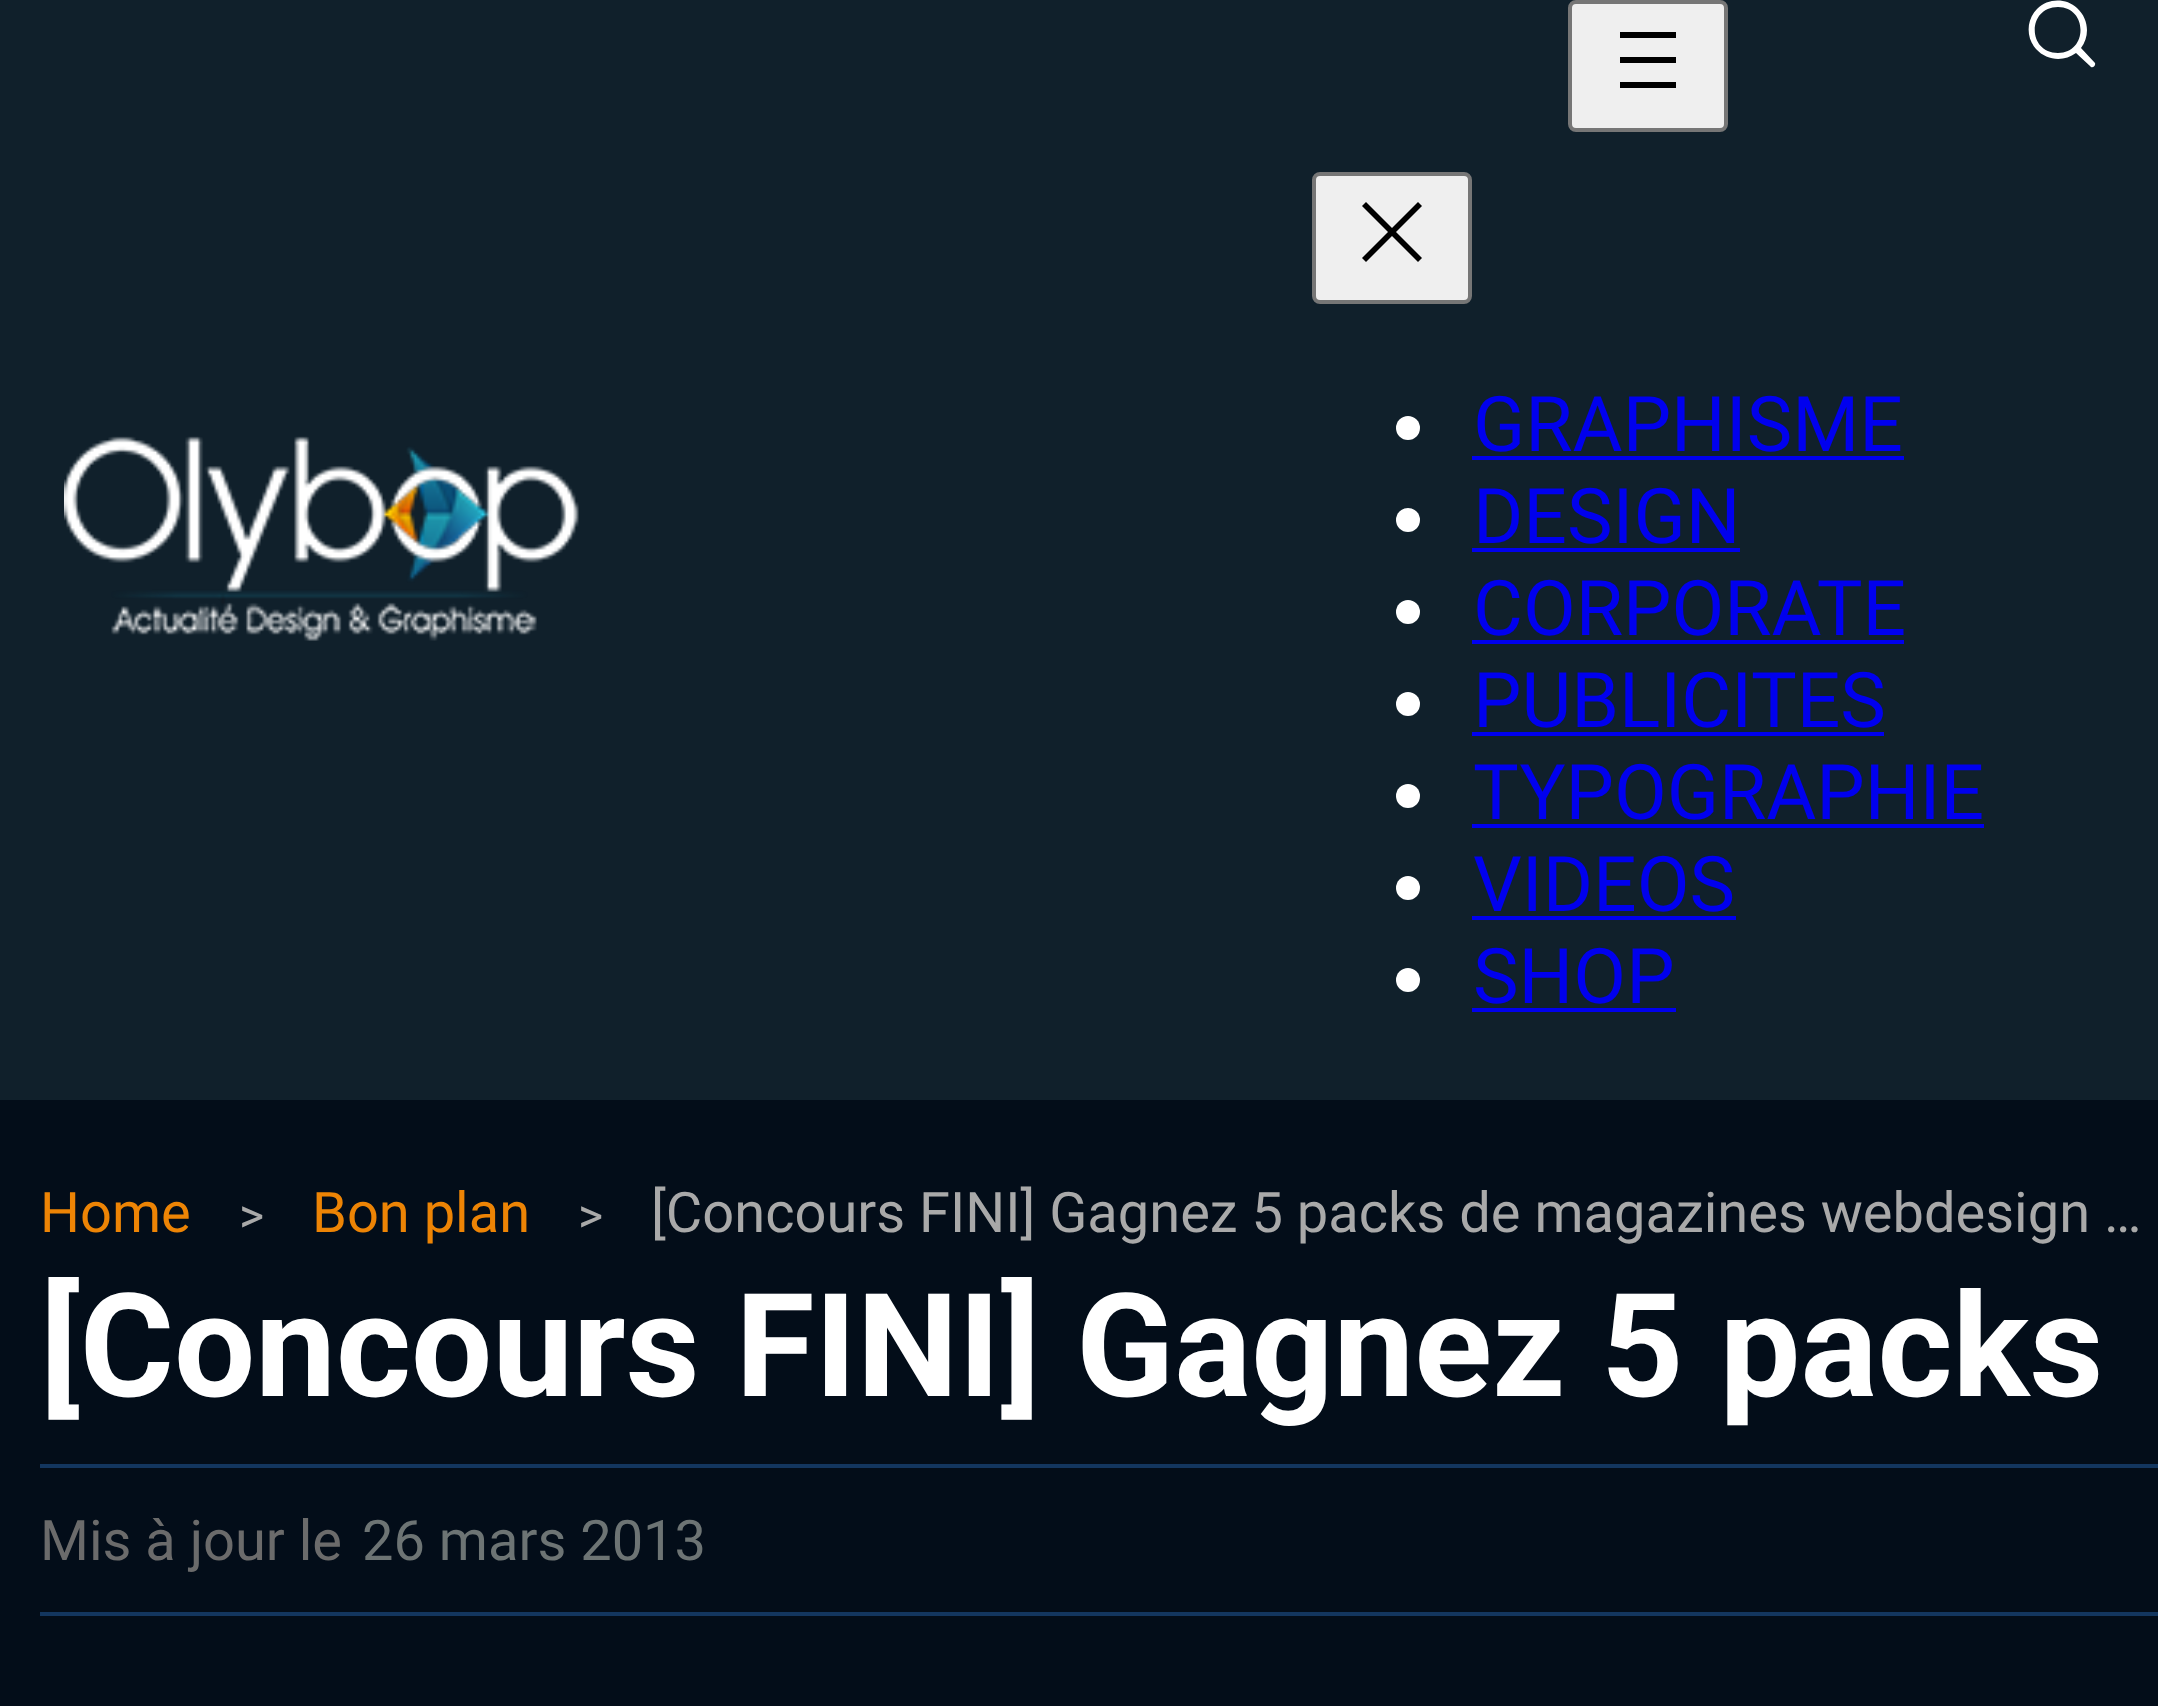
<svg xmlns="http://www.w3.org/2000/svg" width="2158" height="1706">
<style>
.a{font:76.75px Roboto;fill:#00e}
.b{font:56px Roboto;fill:#ed8405}
.c{font:48px Roboto;fill:#a9a9a9}
.d{font:56px Roboto;fill:#a9a9a9}
.e{font:bold 144px Roboto;fill:#fff}
.f{font:56px Roboto;fill:#6b6b6b}
.g{font:56px Roboto;fill:#6d7474}
</style>
<rect width="100%" height="100%" fill="#030d19"/>
<path fill="#10202b" d="M0 0h2158v1100H0z"/>
<image href="1.png" x="64" y="436" width="515" height="205"/>
<path fill="#fff" d="M2090 66l-14-13c-12 9-29 8-40-4c-10-11-10-29 1-40c11-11 29-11 40-1c12 11 13 28 4 40l14 15c1 3-3 6-5 3zm-32-13c30 0 30-46 0-46c-31 0-31 46 0 46z"/>
<rect fill="#efefef" stroke="#767676" stroke-width="4" x="1570" y="2" width="156" height="128" rx="6"/>
<path fill="#000" d="M1620 32v6h56v-6zm0 31h56v-6h-56zm0 25h56v-6h-56z"/>
<rect fill="#efefef" stroke="#767676" stroke-width="4" x="1314" y="174" width="156" height="128" rx="6"/>
<path fill="#000" d="M1396 232l26-26l-4-4l-26 26l-26-26l-4 4l26 26l-26 26l4 4l26-26l26 26l4-4z"/>
<circle fill="#fff" cx="1408" cy="428" r="12"/>
<path fill="#00e" d="M1472 456h432v4H1472z"/>
<circle fill="#fff" cx="1408" cy="520" r="12"/>
<path fill="#00e" d="M1472 548h268v4H1472z"/>
<circle fill="#fff" cx="1408" cy="612" r="12"/>
<path fill="#00e" d="M1472 640h432v4H1472z"/>
<circle fill="#fff" cx="1408" cy="704" r="12"/>
<path fill="#00e" d="M1472 732h412v4H1472z"/>
<circle fill="#fff" cx="1408" cy="796" r="12"/>
<path fill="#00e" d="M1472 824h512v4H1472z"/>
<circle fill="#fff" cx="1408" cy="888" r="12"/>
<path fill="#00e" d="M1472 916h264v4H1472z"/>
<circle fill="#fff" cx="1408" cy="980" r="12"/>
<path fill="#00e" d="M1472 1008h204v4H1472z"/>
<path fill="#13365f" d="M40 1464h2118v4H40z"/>
<path fill="#13365f" d="M40 1612h2118v4H40z"/>
<text class="a" x="1473" y="451">GRAPHISME</text>
<text class="a" x="1473" y="543">DESIGN</text>
<text class="a" x="1473" y="635">CORPORATE</text>
<text class="a" x="1473" y="727">PUBLICITES</text>
<text class="a" x="1473" y="819">TYPOGRAPHIE</text>
<text class="a" x="1473" y="911">VIDEOS</text>
<text class="a" x="1473" y="1003">SHOP</text>
<text class="b" x="40" y="1232">Home</text>
<text class="c" x="239" y="1232">&gt;</text>
<text class="b" x="312" y="1232">Bon plan</text>
<text class="c" x="578" y="1232">&gt;</text>
<text class="d" x="651" y="1232">[Concours FINI] Gagnez 5 packs de magazines webdesign …</text>
<text class="e" x="40" y="1396">[Concours FINI] Gagnez 5 packs</text>
<text class="f" x="40" y="1560">Mis à jour le</text>
<text class="g" x="362" y="1560">26 mars 2013</text>
</svg>
